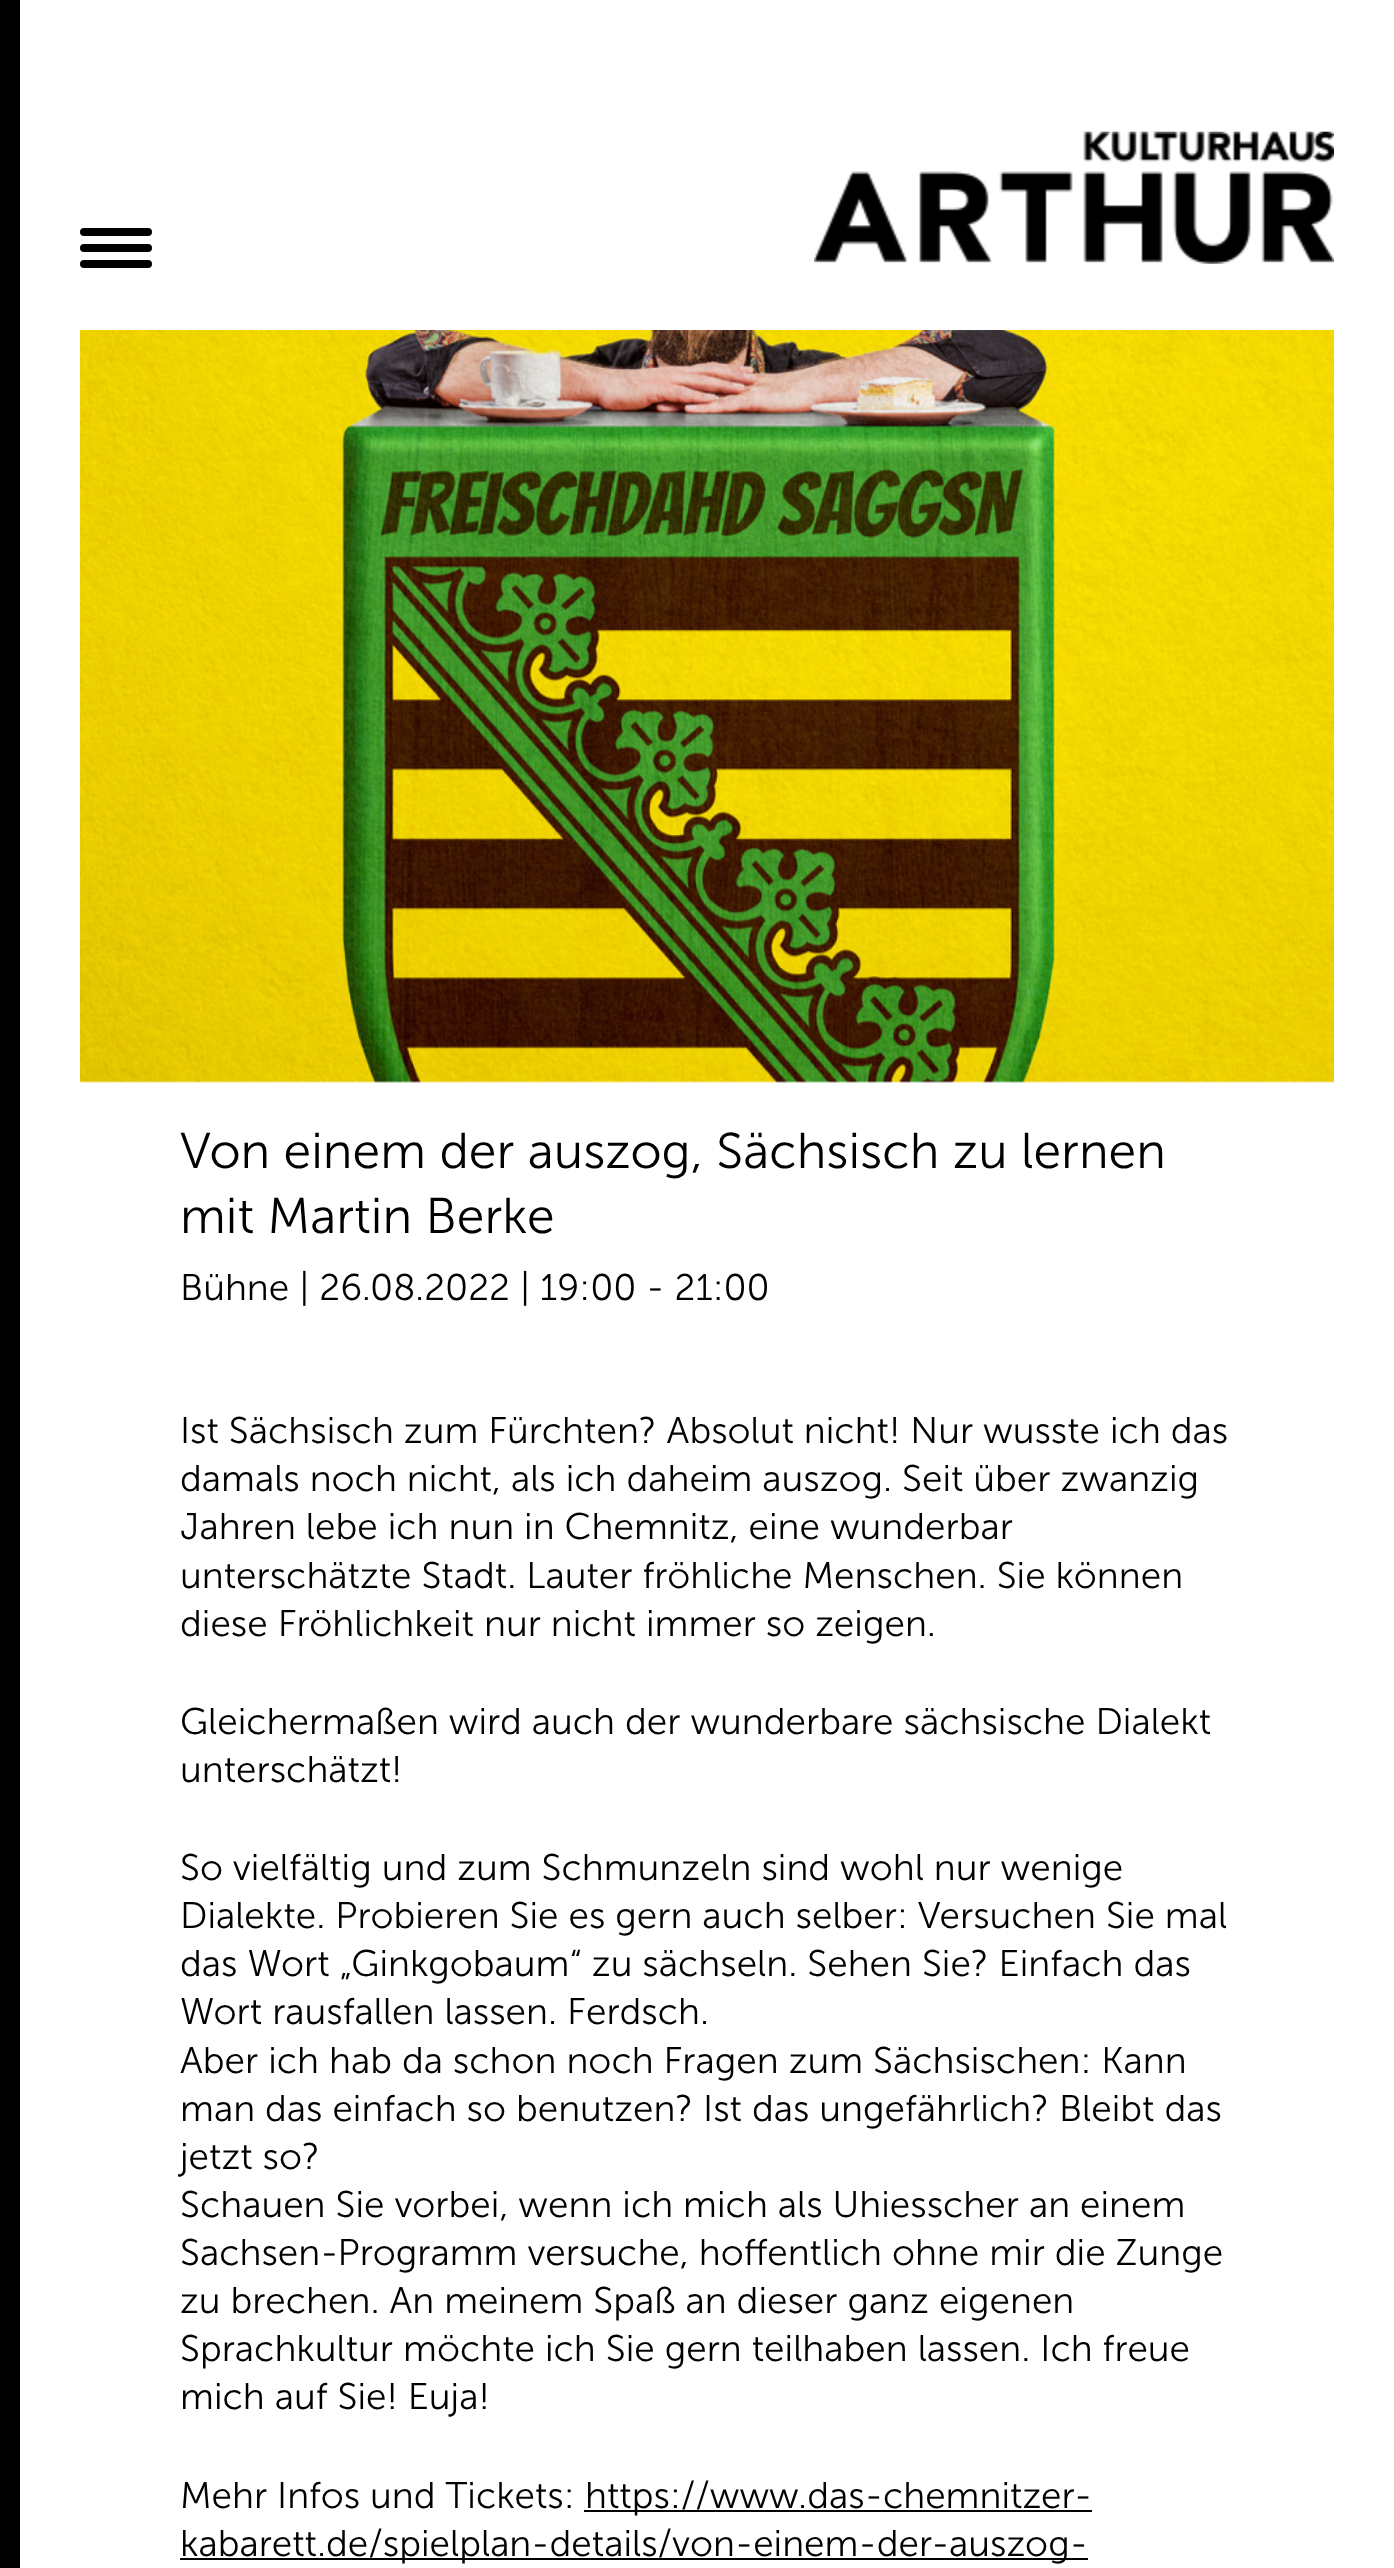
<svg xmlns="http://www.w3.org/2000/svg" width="1394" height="2568">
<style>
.a{font:300 50px 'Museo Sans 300';fill:#000}
.b{font:300 37px 'Museo Sans 300';fill:#000}
</style>
<rect width="100%" height="100%" fill="#000"/>
<path fill="#fff" d="M20 0h1374v2568H20z"/>
<rect fill="#000" x="80" y="244" width="72" height="8" rx="4"/>
<rect fill="#000" x="80" y="228" width="72" height="8" rx="4"/>
<rect fill="#000" x="80" y="260" width="72" height="8" rx="4"/>
<image href="1.png" x="814" y="131" width="520" height="133"/>
<image href="2.png" x="80" y="330" width="1254" height="753"/>
<path fill="#000" d="M584 2510h508v2H584z"/>
<path fill="#000" d="M180 2558h908v2H180z"/>
<text class="a" x="180" y="1168">Von einem der auszog, Sächsisch zu lernen</text>
<text class="a" x="180" y="1233">mit Martin Berke</text>
<text class="b" x="180" y="1300">Bühne | 26.08.2022 | 19:00 - 21:00</text>
<text class="b" x="180" y="1443">Ist Sächsisch zum Fürchten? Absolut nicht! Nur wusste ich das</text>
<text class="b" x="180" y="1491">damals noch nicht, als ich daheim auszog. Seit über zwanzig</text>
<text class="b" x="180" y="1539">Jahren lebe ich nun in Chemnitz, eine wunderbar</text>
<text class="b" x="180" y="1588">unterschätzte Stadt. Lauter fröhliche Menschen. Sie können</text>
<text class="b" x="180" y="1636">diese Fröhlichkeit nur nicht immer so zeigen.</text>
<text class="b" x="180" y="1734">Gleichermaßen wird auch der wunderbare sächsische Dialekt</text>
<text class="b" x="180" y="1782">unterschätzt!</text>
<text class="b" x="180" y="1880">So vielfältig und zum Schmunzeln sind wohl nur wenige</text>
<text class="b" x="180" y="1928">Dialekte. Probieren Sie es gern auch selber: Versuchen Sie mal</text>
<text class="b" x="180" y="1976">das Wort „Ginkgobaum“ zu sächseln. Sehen Sie? Einfach das</text>
<text class="b" x="180" y="2024">Wort rausfallen lassen. Ferdsch.</text>
<text class="b" x="180" y="2073">Aber ich hab da schon noch Fragen zum Sächsischen: Kann</text>
<text class="b" x="180" y="2121">man das einfach so benutzen? Ist das ungefährlich? Bleibt das</text>
<text class="b" x="180" y="2169">jetzt so?</text>
<text class="b" x="180" y="2217">Schauen Sie vorbei, wenn ich mich als Uhiesscher an einem</text>
<text class="b" x="180" y="2265">Sachsen-Programm versuche, hoffentlich ohne mir die Zunge</text>
<text class="b" x="180" y="2313">zu brechen. An meinem Spaß an dieser ganz eigenen</text>
<text class="b" x="180" y="2361">Sprachkultur möchte ich Sie gern teilhaben lassen. Ich freue</text>
<text class="b" x="180" y="2409">mich auf Sie! Euja!</text>
<text class="b" x="180" y="2508">Mehr Infos und Tickets:</text>
<text class="b" x="585" y="2508">https://www.das-chemnitzer-</text>
<text class="b" x="180" y="2556">kabarett.de/spielplan-details/von-einem-der-auszog-</text>
</svg>
